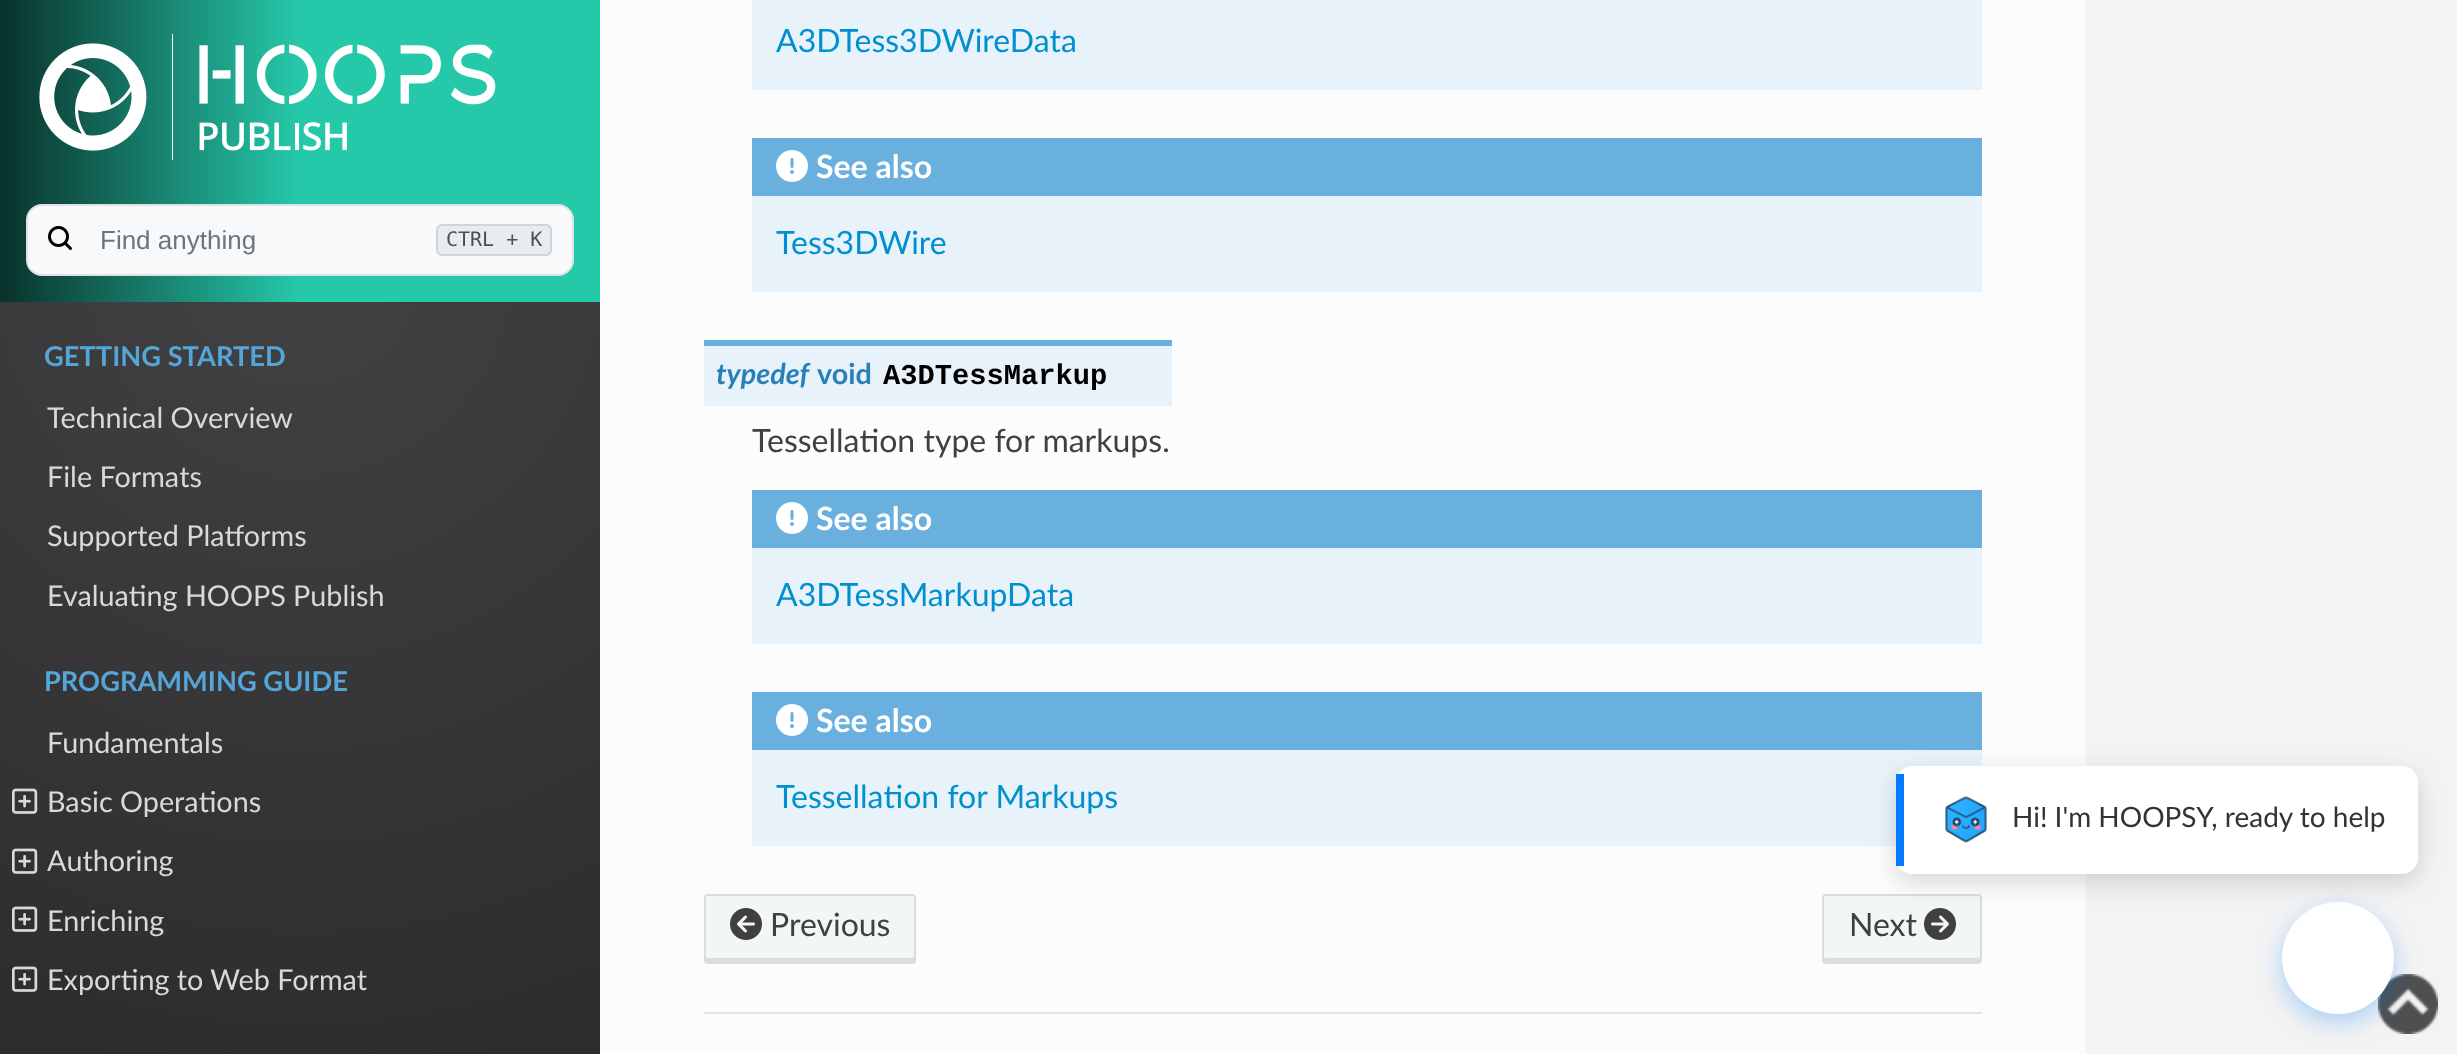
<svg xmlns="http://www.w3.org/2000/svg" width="2457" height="1054">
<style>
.a{font:26px Liberation Sans;fill:#6c757d}
.b{font:20px DejaVu Sans Mono;fill:#495057}
.c{font:bold 27.25px Lato;fill:#55a5d9}
.d{font:28.75px Lato;fill:#d9d9d9}
.e{font:32px Lato;fill:#0090d0}
.f{font:bold 32px Lato;fill:#fff}
.g{font:italic bold 28.75px Lato;fill:#2980b9}
.h{font:bold 28.75px Lato;fill:#2980b9}
.i{font:bold 28.75px Liberation Mono;fill:#000}
.j{font:32px Lato;fill:#404040}
.k{font:28px Lato;fill:#333}
</style>
<defs>
<radialGradient id="g1" gradientUnits="userSpaceOnUse" cx="300" cy="264" r="846"><stop offset="0" stop-color="#424244"/><stop offset="1" stop-color="#2c2c2d"/></radialGradient>
<linearGradient id="g2" gradientUnits="userSpaceOnUse" x1="0" y1="151" x2="600" y2="151"><stop offset="0" stop-color="#09322b"/><stop offset="0.5" stop-color="#26c8aa"/></linearGradient>
</defs>
<rect width="100%" height="100%" fill="#f3f3f3"/>
<path fill="url(#g1)" d="M0 302h600v752H0z"/>
<path fill="url(#g2)" d="M0 0h600v302H0z"/>
<image href="1.png" x="39" y="34" width="457" height="126"/>
<rect fill="#f8f9fa" stroke="#dee2e6" stroke-width="2" x="27" y="205" width="546" height="70" rx="15"/>
<image href="2.png" x="48" y="226" width="24" height="24"/>
<rect fill="#e9ecef" stroke="#ced4da" stroke-width="2" x="437" y="225" width="114" height="30" rx="5"/>
<image href="3.png" x="12" y="788" width="26" height="26"/>
<image href="4.png" x="12" y="848" width="26" height="26"/>
<image href="5.png" x="12" y="906" width="26" height="26"/>
<image href="6.png" x="12" y="966" width="26" height="26"/>
<path fill="#fcfcfc" d="M600 0h1486v1054H600z"/>
<path fill="#e7f2fa" d="M752 0h1230v90H752z"/>
<path fill="#e7f2fa" d="M752 196h1230v96H752z"/>
<path fill="#6ab0de" d="M752 138h1230v58H752z"/>
<image href="7.png" x="776" y="150" width="32" height="32"/>
<path fill="#e7f2fa" d="M704 346h468v60H704z"/>
<path fill="#6ab0de" d="M704 340h468v6H704z"/>
<path fill="#e7f2fa" d="M752 548h1230v96H752z"/>
<path fill="#6ab0de" d="M752 490h1230v58H752z"/>
<image href="7.png" x="776" y="502" width="32" height="32"/>
<path fill="#e7f2fa" d="M752 750h1230v96H752z"/>
<path fill="#6ab0de" d="M752 692h1230v58H752z"/>
<image href="7.png" x="776" y="704" width="32" height="32"/>
<rect fill="#f3f6f6" x="704" y="894" width="212" height="70" rx="4"/>
<path fill="#dbdddd" d="M706 956v4c0 1 1 2 2 2h204c1 0 2-1 2-2v-4c0 1-1 2-2 2h-204l-2-1z"/>
<rect fill="none" stroke="#0000001a" stroke-width="2" x="705" y="895" width="210" height="68" rx="3"/>
<image href="8.png" x="730" y="908" width="32" height="32"/>
<rect fill="#f3f6f6" x="1822" y="894" width="160" height="70" rx="4"/>
<path fill="#dbdddd" d="M1824 956v4c0 1 1 2 2 2h152c1 0 2-1 2-2v-4c0 1-1 2-2 2h-152c-1 0-2-1-2-2z"/>
<rect fill="none" stroke="#0000001a" stroke-width="2" x="1823" y="895" width="158" height="68" rx="3"/>
<image href="9.png" x="1924" y="908" width="32" height="32"/>
<path fill="#e1e4e5" d="M704 1012h1278v2H704z"/>
<image href="11.png" x="2378" y="974" width="60" height="60"/>
<rect fill="#007bff4d" filter="blur(12px)" x="2282" y="910" width="112" height="112" rx="56"/>
<circle fill="#fff" cx="2338" cy="958" r="56"/>
<rect fill="#00000026" filter="blur(12px)" x="1896" y="774" width="522" height="108" rx="16"/>
<rect fill="#fff" x="1896" y="766" width="522" height="108" rx="16"/>
<path fill="#007bff" d="M1896 774h8v92H1896z"/>
<image href="10.png" x="1945" y="796" width="42" height="47"/>
<text class="a" x="100" y="249">Find anything</text>
<text class="b" x="446" y="246">CTRL + K</text>
<text class="c" x="44" y="366">GETTING STARTED</text>
<text class="d" x="47" y="428">Technical Overview</text>
<text class="d" x="47" y="487">File Formats</text>
<text class="d" x="47" y="546">Supported Platforms</text>
<text class="d" x="47" y="606">Evaluating HOOPS Publish</text>
<text class="c" x="44" y="691">PROGRAMMING GUIDE</text>
<text class="d" x="47" y="753">Fundamentals</text>
<text class="d" x="47" y="812">Basic Operations</text>
<text class="d" x="47" y="871">Authoring</text>
<text class="d" x="47" y="931">Enriching</text>
<text class="d" x="47" y="990">Exporting to Web Format</text>
<text class="e" x="776" y="52">A3DTess3DWireData</text>
<text class="f" x="816" y="178">See also</text>
<text class="e" x="776" y="254">Tess3DWire</text>
<text class="g" x="716" y="384">typedef</text>
<text class="h" x="817" y="384">void</text>
<text class="i" x="883" y="384">A3DTessMarkup</text>
<text class="j" x="752" y="452">Tessellation type for markups.</text>
<text class="f" x="816" y="530">See also</text>
<text class="e" x="776" y="606">A3DTessMarkupData</text>
<text class="f" x="816" y="732">See also</text>
<text class="e" x="776" y="808">Tessellation for Markups</text>
<text class="j" x="770" y="936">Previous</text>
<text class="j" x="1849" y="936">Next</text>
<text class="k" x="2012" y="827">Hi! I'm HOOPSY, ready to help</text>
</svg>
